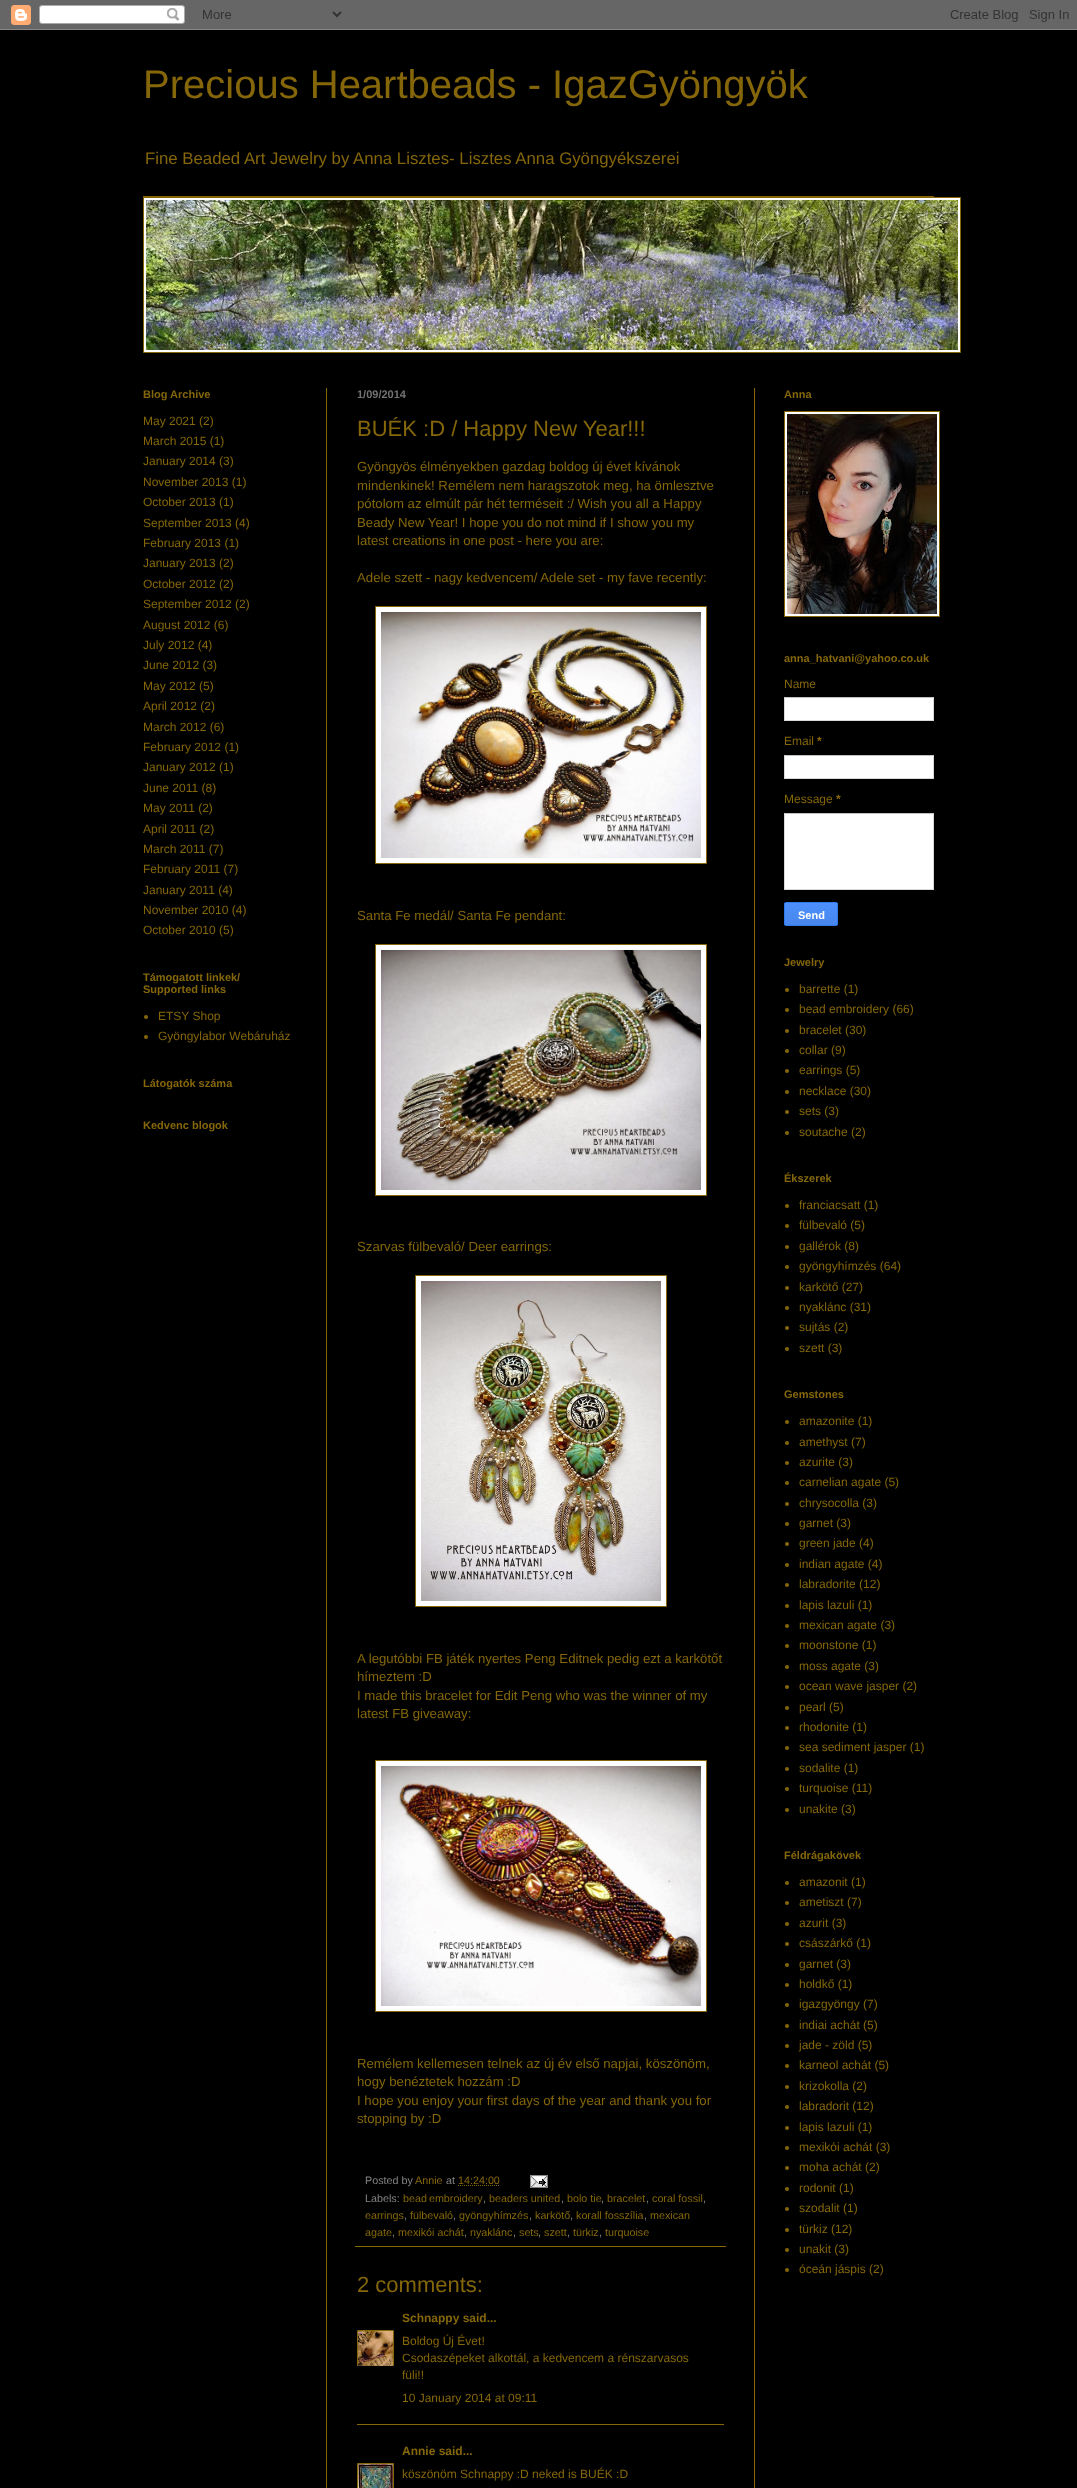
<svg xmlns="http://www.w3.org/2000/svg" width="1077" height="2488">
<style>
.a{font:40px Liberation Sans;fill:#85670a}
.b{font:16.8px Liberation Sans;fill:#85670a}
.c{font:bold 11px Liberation Sans;fill:#85670a}
.d{font:12px Liberation Sans;fill:#85670a}
.e{font:bold 11px Liberation Sans;fill:#737373}
.f{font:22px Liberation Sans;fill:#85670a}
.g{font:13.2px Liberation Sans;fill:#85670a}
.h{font:10.75px Liberation Sans;fill:#838383}
.i{font:10.75px Liberation Sans;fill:#85670a}
.j{font:bold 12px Liberation Sans;fill:#85670a}
.k{font:bold 11px Liberation Sans;fill:#fff}
</style>
<defs>
<clipPath id="clip1"><path d="M357 2330h37v36H357z"/></clipPath>
<clipPath id="clip2"><rect x="784" y="902" width="54" height="24" rx="2"/></clipPath>
<linearGradient id="g1" gradientUnits="userSpaceOnUse" x1="811" y1="903" x2="811" y2="925"><stop offset="0" stop-color="#4d90fe"/><stop offset="1" stop-color="#4787ed"/></linearGradient>
</defs>
<rect width="100%" height="100%" fill="#000"/>
<image href="1.png" x="0" y="0" width="1077" height="30"/>
<path fill="#85670a" d="M143 196h791v1H143z"/>
<path fill="#fff" stroke="#85670a" d="M143.5 197.5h817v155H143.5z"/>
<image href="2.png" x="146" y="200" width="812" height="150"/>
<path fill="#85670a" d="M326 388h1v2100H326z"/>
<path fill="#85670a" d="M754 388h1v2100H754z"/>
<circle fill="#85670a" cx="146" cy="1017" r="2"/>
<circle fill="#85670a" cx="146" cy="1037" r="2"/>
<path fill="#fff" stroke="#85670a" d="M375.5 606.5h331v257H375.5z"/>
<image href="3.png" x="381" y="612" width="320" height="246"/>
<path fill="#fff" stroke="#85670a" d="M375.5 944.5h331v251H375.5z"/>
<image href="4.png" x="381" y="950" width="320" height="240"/>
<path fill="#fff" stroke="#85670a" d="M415.5 1275.5h251v331H415.5z"/>
<image href="5.png" x="421" y="1281" width="240" height="320"/>
<path fill="#fff" stroke="#85670a" d="M375.5 1760.5h331v251H375.5z"/>
<image href="6.png" x="381" y="1766" width="320" height="240"/>
<path fill="#85670a" d="M355 2246h371v1H355z"/>
<path fill="none" stroke="#85670a" stroke-dasharray="1 1" d="M458 2185.5h42"/>
<image href="7.png" x="530" y="2175" width="18" height="13"/>
<g clip-path="url(#clip1)">
<path fill="none" stroke="#85670a" d="M357.5 2330.5h36v36H357.5z"/>
</g>
<image href="8.png" x="358" y="2331" width="35" height="35"/>
<path fill="#85670a" d="M357 2424h367v1H357z"/>
<path fill="none" stroke="#85670a" d="M357.5 2463.5h36v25H357.5z"/>
<image href="9.png" x="358" y="2464" width="35" height="24"/>
<path fill="#fff" stroke="#85670a" d="M784.5 411.5h155v205H784.5z"/>
<image href="10.png" x="787" y="414" width="150" height="200"/>
<path fill="#fff" d="M785 698h148v22H785z"/>
<path fill="#c0c0c0" d="M784 697h150v1H784z"/>
<path fill="#d9d9d9" d="M933 697h1v24H933z"/>
<path fill="#d9d9d9" d="M784 720h150v1H784z"/>
<path fill="#d9d9d9" d="M784 697h1v24H784z"/>
<path fill="#fff" d="M785 756h148v22H785z"/>
<path fill="#c0c0c0" d="M784 755h150v1H784z"/>
<path fill="#d9d9d9" d="M933 755h1v24H933z"/>
<path fill="#d9d9d9" d="M784 778h150v1H784z"/>
<path fill="#d9d9d9" d="M784 755h1v24H784z"/>
<path fill="#fff" d="M785 814h148v75H785z"/>
<path fill="#c0c0c0" d="M784 813h150v1H784z"/>
<path fill="#d9d9d9" d="M933 813h1v77H933z"/>
<path fill="#d9d9d9" d="M784 889h150v1H784z"/>
<path fill="#d9d9d9" d="M784 813h1v77H784z"/>
<g clip-path="url(#clip2)">
<path fill="url(#g1)" d="M784 903h54v22H784z"/>
</g>
<rect fill="none" stroke="#3079ed" x="784.5" y="902.5" width="53" height="23" rx="1.5"/>
<circle fill="#85670a" cx="787" cy="990" r="2"/>
<circle fill="#85670a" cx="787" cy="1010" r="2"/>
<circle fill="#85670a" cx="787" cy="1031" r="2"/>
<circle fill="#85670a" cx="787" cy="1051" r="2"/>
<circle fill="#85670a" cx="787" cy="1071" r="2"/>
<circle fill="#85670a" cx="787" cy="1092" r="2"/>
<circle fill="#85670a" cx="787" cy="1112" r="2"/>
<circle fill="#85670a" cx="787" cy="1133" r="2"/>
<circle fill="#85670a" cx="787" cy="1206" r="2"/>
<circle fill="#85670a" cx="787" cy="1226" r="2"/>
<circle fill="#85670a" cx="787" cy="1247" r="2"/>
<circle fill="#85670a" cx="787" cy="1267" r="2"/>
<circle fill="#85670a" cx="787" cy="1288" r="2"/>
<circle fill="#85670a" cx="787" cy="1308" r="2"/>
<circle fill="#85670a" cx="787" cy="1328" r="2"/>
<circle fill="#85670a" cx="787" cy="1349" r="2"/>
<circle fill="#85670a" cx="787" cy="1422" r="2"/>
<circle fill="#85670a" cx="787" cy="1443" r="2"/>
<circle fill="#85670a" cx="787" cy="1463" r="2"/>
<circle fill="#85670a" cx="787" cy="1483" r="2"/>
<circle fill="#85670a" cx="787" cy="1504" r="2"/>
<circle fill="#85670a" cx="787" cy="1524" r="2"/>
<circle fill="#85670a" cx="787" cy="1544" r="2"/>
<circle fill="#85670a" cx="787" cy="1565" r="2"/>
<circle fill="#85670a" cx="787" cy="1585" r="2"/>
<circle fill="#85670a" cx="787" cy="1606" r="2"/>
<circle fill="#85670a" cx="787" cy="1626" r="2"/>
<circle fill="#85670a" cx="787" cy="1646" r="2"/>
<circle fill="#85670a" cx="787" cy="1667" r="2"/>
<circle fill="#85670a" cx="787" cy="1687" r="2"/>
<circle fill="#85670a" cx="787" cy="1708" r="2"/>
<circle fill="#85670a" cx="787" cy="1728" r="2"/>
<circle fill="#85670a" cx="787" cy="1748" r="2"/>
<circle fill="#85670a" cx="787" cy="1769" r="2"/>
<circle fill="#85670a" cx="787" cy="1789" r="2"/>
<circle fill="#85670a" cx="787" cy="1810" r="2"/>
<circle fill="#85670a" cx="787" cy="1883" r="2"/>
<circle fill="#85670a" cx="787" cy="1903" r="2"/>
<circle fill="#85670a" cx="787" cy="1924" r="2"/>
<circle fill="#85670a" cx="787" cy="1944" r="2"/>
<circle fill="#85670a" cx="787" cy="1965" r="2"/>
<circle fill="#85670a" cx="787" cy="1985" r="2"/>
<circle fill="#85670a" cx="787" cy="2005" r="2"/>
<circle fill="#85670a" cx="787" cy="2026" r="2"/>
<circle fill="#85670a" cx="787" cy="2046" r="2"/>
<circle fill="#85670a" cx="787" cy="2066" r="2"/>
<circle fill="#85670a" cx="787" cy="2087" r="2"/>
<circle fill="#85670a" cx="787" cy="2107" r="2"/>
<circle fill="#85670a" cx="787" cy="2128" r="2"/>
<circle fill="#85670a" cx="787" cy="2148" r="2"/>
<circle fill="#85670a" cx="787" cy="2168" r="2"/>
<circle fill="#85670a" cx="787" cy="2189" r="2"/>
<circle fill="#85670a" cx="787" cy="2209" r="2"/>
<circle fill="#85670a" cx="787" cy="2230" r="2"/>
<circle fill="#85670a" cx="787" cy="2250" r="2"/>
<circle fill="#85670a" cx="787" cy="2270" r="2"/>
<text class="a" x="143" y="98">Precious Heartbeads - IgazGyöngyök</text>
<text class="b" x="145" y="164">Fine Beaded Art Jewelry by Anna Lisztes- Lisztes Anna Gyöngyékszerei</text>
<text class="c" x="143" y="398">Blog Archive</text>
<text class="d" x="143" y="425">May 2021 (2)</text>
<text class="d" x="143" y="445">March 2015 (1)</text>
<text class="d" x="143" y="465">January 2014 (3)</text>
<text class="d" x="143" y="486">November 2013 (1)</text>
<text class="d" x="143" y="506">October 2013 (1)</text>
<text class="d" x="143" y="527">September 2013 (4)</text>
<text class="d" x="143" y="547">February 2013 (1)</text>
<text class="d" x="143" y="567">January 2013 (2)</text>
<text class="d" x="143" y="588">October 2012 (2)</text>
<text class="d" x="143" y="608">September 2012 (2)</text>
<text class="d" x="143" y="629">August 2012 (6)</text>
<text class="d" x="143" y="649">July 2012 (4)</text>
<text class="d" x="143" y="669">June 2012 (3)</text>
<text class="d" x="143" y="690">May 2012 (5)</text>
<text class="d" x="143" y="710">April 2012 (2)</text>
<text class="d" x="143" y="731">March 2012 (6)</text>
<text class="d" x="143" y="751">February 2012 (1)</text>
<text class="d" x="143" y="771">January 2012 (1)</text>
<text class="d" x="143" y="792">June 2011 (8)</text>
<text class="d" x="143" y="812">May 2011 (2)</text>
<text class="d" x="143" y="833">April 2011 (2)</text>
<text class="d" x="143" y="853">March 2011 (7)</text>
<text class="d" x="143" y="873">February 2011 (7)</text>
<text class="d" x="143" y="894">January 2011 (4)</text>
<text class="d" x="143" y="914">November 2010 (4)</text>
<text class="d" x="143" y="934">October 2010 (5)</text>
<text class="c" x="143" y="981">Támogatott linkek/</text>
<text class="c" x="143" y="993">Supported links</text>
<text class="d" x="158" y="1020">ETSY Shop</text>
<text class="d" x="158" y="1040">Gyöngylabor Webáruház</text>
<text class="c" x="143" y="1087">Látogatók száma</text>
<text class="c" x="143" y="1129">Kedvenc blogok</text>
<text class="e" x="357" y="398">1/09/2014</text>
<text class="f" x="357" y="436">BUÉK :D / Happy New Year!!!</text>
<text class="g" x="357" y="471">Gyöngyös élményekben gazdag boldog új évet kívánok</text>
<text class="g" x="357" y="490">mindenkinek! Remélem nem haragszotok meg, ha ömlesztve</text>
<text class="g" x="357" y="508">pótolom az elmúlt pár hét terméseit :/ Wish you all a Happy</text>
<text class="g" x="357" y="527">Beady New Year! I hope you do not mind if I show you my</text>
<text class="g" x="357" y="545">latest creations in one post - here you are:</text>
<text class="g" x="357" y="582">Adele szett - nagy kedvencem/ Adele set - my fave recently:</text>
<text class="g" x="357" y="920">Santa Fe medál/ Santa Fe pendant:</text>
<text class="g" x="357" y="1251">Szarvas fülbevaló/ Deer earrings:</text>
<text class="g" x="357" y="1663">A legutóbbi FB játék nyertes Peng Editnek pedig ezt a karkötőt</text>
<text class="g" x="357" y="1681">hímeztem :D</text>
<text class="g" x="357" y="1700">I made this bracelet for Edit Peng who was the winner of my</text>
<text class="g" x="357" y="1718">latest FB giveaway:</text>
<text class="g" x="357" y="2068">Remélem kellemesen telnek az új év első napjai, köszönöm,</text>
<text class="g" x="357" y="2086">hogy benéztetek hozzám :D</text>
<text class="g" x="357" y="2105">I hope you enjoy your first days of the year and thank you for</text>
<text class="g" x="357" y="2123">stopping by :D</text>
<text class="h" x="365" y="2184">Posted by</text>
<text class="i" x="415" y="2184">Annie</text>
<text class="h" x="446" y="2184">at</text>
<text class="i" x="458" y="2184">14:24:00</text>
<text class="h" x="365" y="2202">Labels:</text>
<text class="i" x="403" y="2202" word-spacing="-1">bead embroidery</text>
<text class="h" x="483" y="2202">,</text>
<text class="i" x="489" y="2202">beaders united</text>
<text class="h" x="561" y="2202">,</text>
<text class="i" x="567" y="2202">bolo tie</text>
<text class="h" x="601" y="2202">,</text>
<text class="i" x="607" y="2202">bracelet</text>
<text class="h" x="646" y="2202">,</text>
<text class="i" x="652" y="2202">coral fossil</text>
<text class="h" x="703" y="2202">,</text>
<text class="i" x="365" y="2219">earrings</text>
<text class="h" x="404" y="2219">,</text>
<text class="i" x="410" y="2219">fülbevaló</text>
<text class="h" x="453" y="2219">,</text>
<text class="i" x="459" y="2219">gyöngyhímzés</text>
<text class="h" x="529" y="2219">,</text>
<text class="i" x="535" y="2219">karkötő</text>
<text class="h" x="570" y="2219">,</text>
<text class="i" x="576" y="2219">korall fosszília</text>
<text class="h" x="644" y="2219">,</text>
<text class="i" x="650" y="2219">mexican</text>
<text class="i" x="365" y="2236">agate</text>
<text class="h" x="392" y="2236">,</text>
<text class="i" x="398" y="2236">mexikói achát</text>
<text class="h" x="464" y="2236">,</text>
<text class="i" x="470" y="2236">nyaklánc</text>
<text class="h" x="513" y="2236">,</text>
<text class="i" x="519" y="2236">sets</text>
<text class="h" x="538" y="2236">,</text>
<text class="i" x="544" y="2236">szett</text>
<text class="h" x="567" y="2236">,</text>
<text class="i" x="573" y="2236">türkiz</text>
<text class="h" x="599" y="2236">,</text>
<text class="i" x="605" y="2236">turquoise</text>
<text class="f" x="357" y="2292">2 comments:</text>
<text class="j" x="402" y="2322">Schnappy said...</text>
<text class="d" x="402" y="2345">Boldog Új Évet!</text>
<text class="d" x="402" y="2362">Csodaszépeket alkottál, a kedvencem a rénszarvasos</text>
<text class="d" x="402" y="2379">füli!!</text>
<text class="d" x="402" y="2402">10 January 2014 at 09:11</text>
<text class="j" x="402" y="2455">Annie said...</text>
<text class="d" x="402" y="2478">köszönöm Schnappy :D neked is BUÉK :D</text>
<text class="c" x="784" y="398">Anna</text>
<text class="c" x="784" y="662">anna_hatvani@yahoo.co.uk</text>
<text class="d" x="784" y="688">Name</text>
<text class="d" x="784" y="745">Email</text>
<text class="j" x="817" y="745">*</text>
<text class="d" x="784" y="803">Message</text>
<text class="j" x="836" y="803">*</text>
<text class="k" x="798" y="919">Send</text>
<text class="c" x="784" y="966">Jewelry</text>
<text class="d" x="799" y="993">barrette (1)</text>
<text class="d" x="799" y="1013">bead embroidery (66)</text>
<text class="d" x="799" y="1034">bracelet (30)</text>
<text class="d" x="799" y="1054">collar (9)</text>
<text class="d" x="799" y="1074">earrings (5)</text>
<text class="d" x="799" y="1095">necklace (30)</text>
<text class="d" x="799" y="1115">sets (3)</text>
<text class="d" x="799" y="1136">soutache (2)</text>
<text class="c" x="784" y="1182">Ékszerek</text>
<text class="d" x="799" y="1209">franciacsatt (1)</text>
<text class="d" x="799" y="1229">fülbevaló (5)</text>
<text class="d" x="799" y="1250">gallérok (8)</text>
<text class="d" x="799" y="1270">gyöngyhímzés (64)</text>
<text class="d" x="799" y="1291">karkötő (27)</text>
<text class="d" x="799" y="1311">nyaklánc (31)</text>
<text class="d" x="799" y="1331">sujtás (2)</text>
<text class="d" x="799" y="1352">szett (3)</text>
<text class="c" x="784" y="1398">Gemstones</text>
<text class="d" x="799" y="1425">amazonite (1)</text>
<text class="d" x="799" y="1446">amethyst (7)</text>
<text class="d" x="799" y="1466">azurite (3)</text>
<text class="d" x="799" y="1486">carnelian agate (5)</text>
<text class="d" x="799" y="1507">chrysocolla (3)</text>
<text class="d" x="799" y="1527">garnet (3)</text>
<text class="d" x="799" y="1547">green jade (4)</text>
<text class="d" x="799" y="1568">indian agate (4)</text>
<text class="d" x="799" y="1588">labradorite (12)</text>
<text class="d" x="799" y="1609">lapis lazuli (1)</text>
<text class="d" x="799" y="1629">mexican agate (3)</text>
<text class="d" x="799" y="1649">moonstone (1)</text>
<text class="d" x="799" y="1670">moss agate (3)</text>
<text class="d" x="799" y="1690">ocean wave jasper (2)</text>
<text class="d" x="799" y="1711">pearl (5)</text>
<text class="d" x="799" y="1731">rhodonite (1)</text>
<text class="d" x="799" y="1751">sea sediment jasper (1)</text>
<text class="d" x="799" y="1772">sodalite (1)</text>
<text class="d" x="799" y="1792">turquoise (11)</text>
<text class="d" x="799" y="1813">unakite (3)</text>
<text class="c" x="784" y="1859">Féldrágakövek</text>
<text class="d" x="799" y="1886">amazonit (1)</text>
<text class="d" x="799" y="1906">ametiszt (7)</text>
<text class="d" x="799" y="1927">azurit (3)</text>
<text class="d" x="799" y="1947">császárkő (1)</text>
<text class="d" x="799" y="1968">garnet (3)</text>
<text class="d" x="799" y="1988">holdkő (1)</text>
<text class="d" x="799" y="2008">igazgyöngy (7)</text>
<text class="d" x="799" y="2029">indiai achát (5)</text>
<text class="d" x="799" y="2049">jade - zöld (5)</text>
<text class="d" x="799" y="2069">karneol achát (5)</text>
<text class="d" x="799" y="2090">krizokolla (2)</text>
<text class="d" x="799" y="2110">labradorit (12)</text>
<text class="d" x="799" y="2131">lapis lazuli (1)</text>
<text class="d" x="799" y="2151">mexikói achát (3)</text>
<text class="d" x="799" y="2171">moha achát (2)</text>
<text class="d" x="799" y="2192">rodonit (1)</text>
<text class="d" x="799" y="2212">szodalit (1)</text>
<text class="d" x="799" y="2233">türkiz (12)</text>
<text class="d" x="799" y="2253">unakit (3)</text>
<text class="d" x="799" y="2273">óceán jáspis (2)</text>
</svg>
